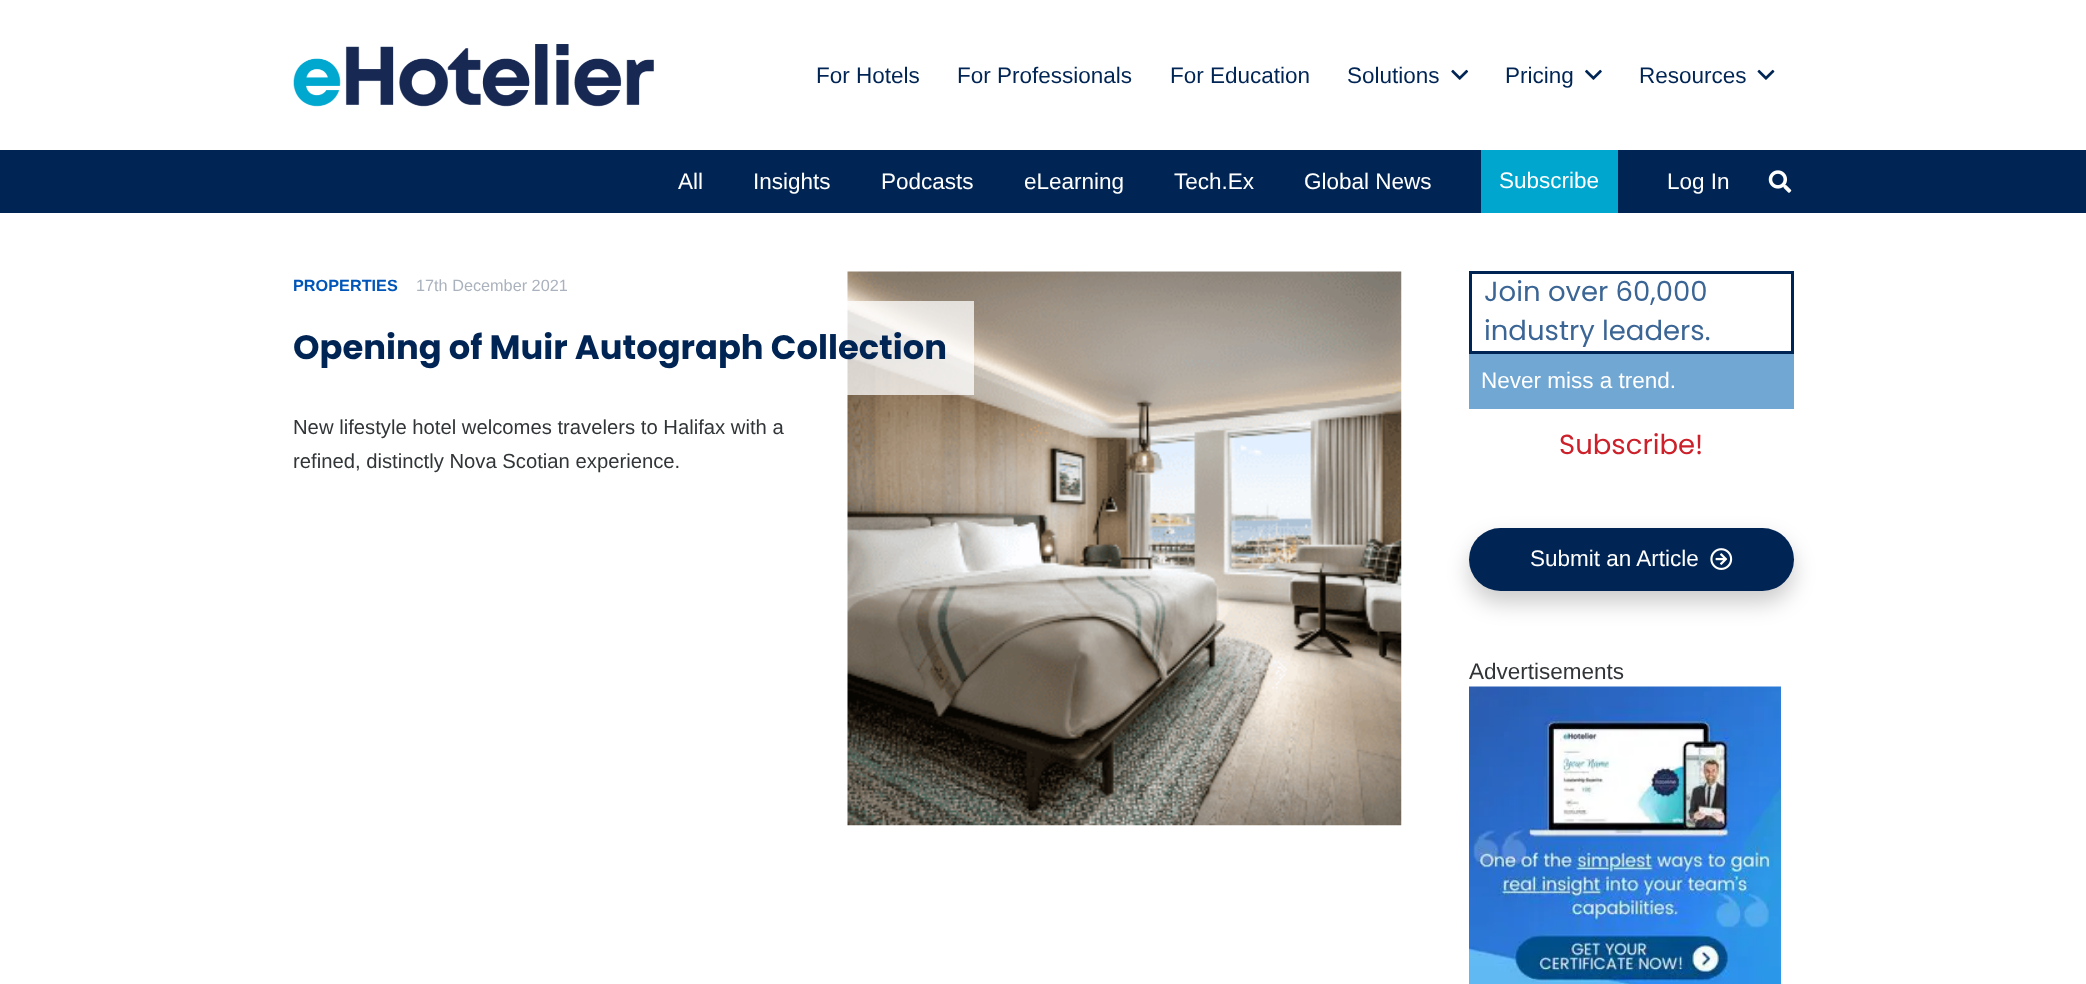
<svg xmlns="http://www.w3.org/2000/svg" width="2086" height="984">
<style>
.a{font:22.5px Liberation Sans;fill:#002554}
.b{font:22.5px Liberation Sans;fill:#fff}
.c{font:bold 16.25px Liberation Sans;fill:#0055b8}
.d{font:16.25px Liberation Sans;fill:#aab2bd}
.e{font:bold 33.75px Poppins;fill:#002554}
.f{font:20.25px Liberation Sans;fill:#313537}
.g{font:27.5px Poppins;fill:#3b6594}
.h{font:27.5px Poppins;fill:#cc202a}
.i{font:22.5px Liberation Sans;fill:#313537}
</style>
<rect width="100%" height="100%" fill="#fff"/>
<image href="1.png" x="293" y="44" width="361" height="63"/>
<image href="2.png" x="1451" y="69" width="18" height="11"/>
<image href="3.png" x="1585" y="69" width="17" height="11"/>
<image href="4.png" x="1757" y="69" width="18" height="11"/>
<path fill="#002554" d="M0 150h2086v63H0z"/>
<path fill="#00a6ce" d="M1481 150h137v63H1481z"/>
<image href="5.png" x="1768" y="170" width="24" height="23"/>
<image href="6.png" x="847" y="271" width="555" height="555"/>
<path fill="#ffffffbf" d="M847 301h127v94H847z"/>
<path fill="none" stroke="#002554" stroke-width="3" d="M1470.5 272.5h322v80H1470.5z"/>
<path fill="#71a7d3" d="M1469 354h325v55H1469z"/>
<rect fill="#00000033" filter="blur(11px)" x="1469" y="539" width="325" height="64" rx="32"/>
<rect fill="#002554" x="1469" y="528" width="325" height="63" rx="31.5"/>
<image href="7.png" x="1710" y="548" width="23" height="22"/>
<image href="8.png" x="1469" y="686" width="312" height="298"/>
<text class="a" x="816" y="83">For Hotels</text>
<text class="a" x="957" y="83">For Professionals</text>
<text class="a" x="1170" y="83">For Education</text>
<text class="a" x="1347" y="83">Solutions</text>
<text class="a" x="1505" y="83">Pricing</text>
<text class="a" x="1639" y="83">Resources</text>
<text class="b" x="678" y="189">All</text>
<text class="b" x="753" y="189">Insights</text>
<text class="b" x="881" y="189">Podcasts</text>
<text class="b" x="1024" y="189">eLearning</text>
<text class="b" x="1174" y="189">Tech.Ex</text>
<text class="b" x="1304" y="189">Global News</text>
<text class="b" x="1499" y="188">Subscribe</text>
<text class="b" x="1667" y="189">Log In</text>
<text class="c" x="293" y="291">PROPERTIES</text>
<text class="d" x="416" y="291">17th December 2021</text>
<text class="e" x="293" y="359">Opening of Muir Autograph Collection</text>
<text class="f" x="293" y="434">New lifestyle hotel welcomes travelers to Halifax with a</text>
<text class="f" x="293" y="468">refined, distinctly Nova Scotian experience.</text>
<text class="g" x="1484" y="301">Join over 60,000</text>
<text class="g" x="1484" y="340">industry leaders.</text>
<text class="b" x="1481" y="388">Never miss a trend.</text>
<text class="h" x="1559" y="454">Subscribe!</text>
<text class="b" x="1530" y="566">Submit an Article</text>
<text class="i" x="1469" y="679">Advertisements</text>
</svg>
